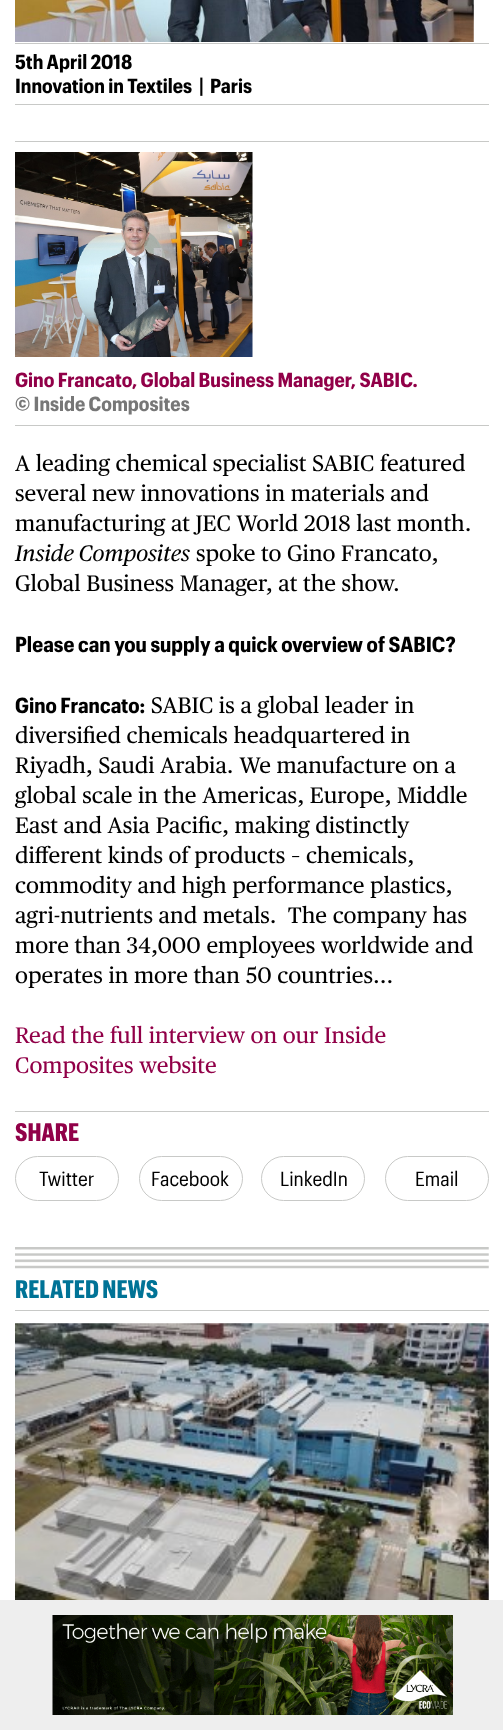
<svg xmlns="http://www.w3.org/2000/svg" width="503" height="1730">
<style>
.a{font:bold 20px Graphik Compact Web;fill:#000}
.b{font:bold 20px Graphik Compact Web;fill:#910048}
.c{font:bold 20px Graphik Compact Web;fill:#777}
.d{font:22.5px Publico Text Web;fill:#000}
.e{font:italic 22.5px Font;fill:#000}
.f{font:bold 21.25px Graphik Compact Web;fill:#000}
.g{font:22.5px Publico Text Web;fill:#910048}
.h{font:bold 25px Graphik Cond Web;fill:#910048}
.i{font:20px Graphik Compact Web;fill:#000}
.j{font:bold 25px Graphik Cond Web;fill:#007396}
</style>
<rect width="100%" height="100%" fill="#fff"/>
<image href="1.png" x="15" y="0" width="459" height="42"/>
<path fill="#c8c9c7" d="M15 43h474v1H15z"/>
<path fill="#c8c9c7" d="M15 104h474v1H15z"/>
<path fill="#c8c9c7" d="M15 141h474v1H15z"/>
<path fill="#c8c9c7" d="M15 425h474v1H15z"/>
<image href="2.png" x="15" y="152" width="238" height="205"/>
<path fill="#c8c9c7" d="M15 1111h474v1H15z"/>
<rect fill="none" stroke="#c8c9c7" x="15.5" y="1156.5" width="103" height="44" rx="22"/>
<rect fill="none" stroke="#c8c9c7" x="139.5" y="1156.5" width="103" height="44" rx="22"/>
<rect fill="none" stroke="#c8c9c7" x="261.5" y="1156.5" width="103" height="44" rx="22"/>
<rect fill="none" stroke="#c8c9c7" x="385.5" y="1156.5" width="103" height="44" rx="22"/>
<image href="3.png" x="15" y="1247" width="474" height="22"/>
<path fill="#c8c9c7" d="M15 1310h474v1H15z"/>
<image href="4.png" x="15" y="1323" width="474" height="277"/>
<path fill="#eee" d="M0 1600h503v130H0z"/>
<image href="5.png" x="52" y="1615" width="401" height="100"/>
<text class="a" x="15" y="69">5th April 2018</text>
<text class="a" x="15" y="93">Innovation in Textiles</text>
<text class="a" x="199" y="93">|</text>
<text class="a" x="210" y="93">Paris</text>
<text class="b" x="15" y="387">Gino Francato, Global Business Manager, SABIC.</text>
<text class="c" x="15" y="411">© Inside Composites</text>
<text class="d" x="15" y="471">A leading chemical specialist SABIC featured</text>
<text class="d" x="15" y="501">several new innovations in materials and</text>
<text class="d" x="15" y="531">manufacturing at JEC World 2018 last month.</text>
<text class="e" x="15" y="561">Inside Composites</text>
<text class="d" x="196" y="561">spoke to Gino Francato,</text>
<text class="d" x="15" y="591">Global Business Manager, at the show.</text>
<text class="f" x="15" y="652">Please can you supply a quick overview of SABIC?</text>
<text class="f" x="15" y="713">Gino Francato:</text>
<text class="d" x="151" y="713">SABIC is a global leader in</text>
<text class="d" x="15" y="743">diversified chemicals headquartered in</text>
<text class="d" x="15" y="773">Riyadh, Saudi Arabia. We manufacture on a</text>
<text class="d" x="15" y="803">global scale in the Americas, Europe, Middle</text>
<text class="d" x="15" y="833">East and Asia Pacific, making distinctly</text>
<text class="d" x="15" y="863">different kinds of products – chemicals,</text>
<text class="d" x="15" y="893">commodity and high performance plastics,</text>
<text class="d" xml:space="preserve" x="15" y="923">agri-nutrients and metals.  The company has</text>
<text class="d" x="15" y="953">more than 34,000 employees worldwide and</text>
<text class="d" x="15" y="983">operates in more than 50 countries...</text>
<text class="g" x="15" y="1043">Read the full interview on our Inside</text>
<text class="g" x="15" y="1073">Composites website</text>
<text class="h" x="15" y="1141">SHARE</text>
<text class="i" x="39" y="1186">Twitter</text>
<text class="i" x="151" y="1186">Facebook</text>
<text class="i" x="280" y="1186">LinkedIn</text>
<text class="i" x="415" y="1186">Email</text>
<text class="j" x="15" y="1298">RELATED NEWS</text>
</svg>
